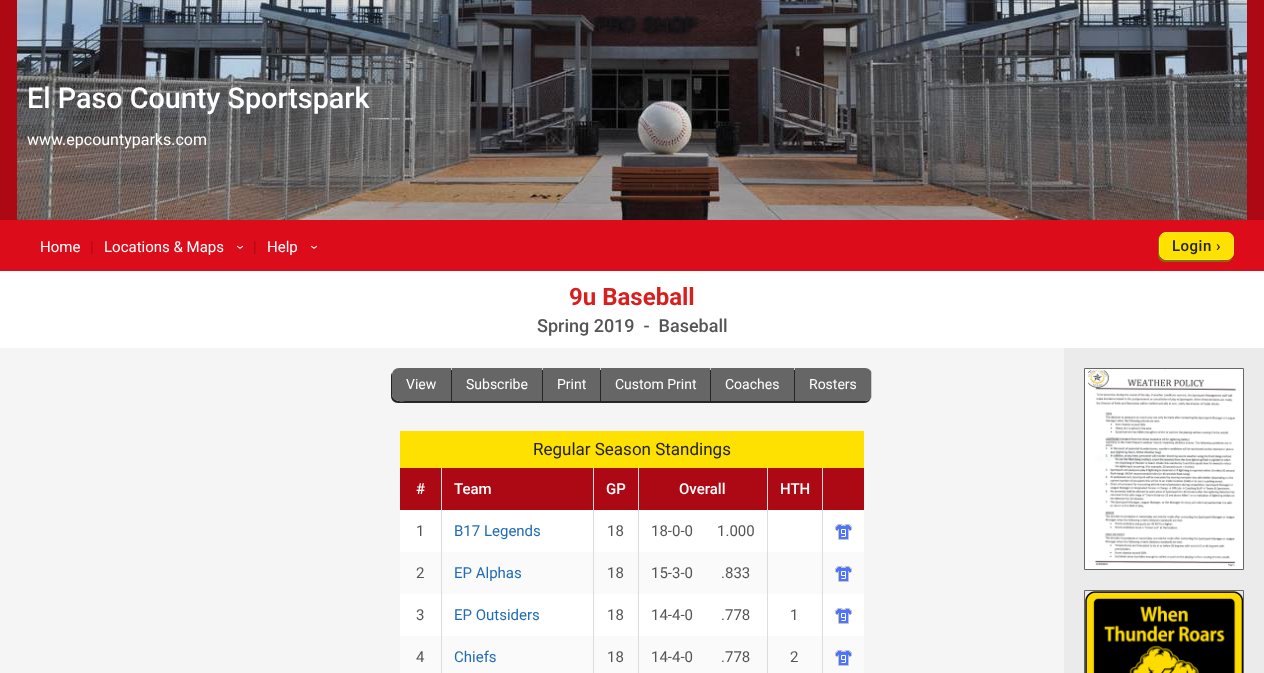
<svg xmlns="http://www.w3.org/2000/svg" width="1264" height="673">
<style>
.a{font:500 28.75px Roboto;fill:#fff}
.b{font:16px Roboto;fill:#fff}
.c{font:15px Roboto;fill:#fff}
.d{font:15px Roboto;fill:#ac0915}
.e{font:500 15px Roboto;letter-spacing:0.5px;fill:#222}
.f{font:bold 24px Roboto;fill:#d81f1f}
.g{font:500 18px Roboto;fill:#555}
.h{font:14px Roboto;fill:#fff}
.i{font:17px Roboto;fill:#222}
.j{font:500 15px Roboto;fill:#fff}
.k{font:15px Roboto;fill:#555}
.l{font:15px Roboto;fill:#1f6bb6}
</style>
<rect width="100%" height="100%" fill="#f5f5f5"/>
<path fill="#ac0915" d="M0 0h1264v220H0z"/>
<image href="1.png" x="17" y="0" width="1230" height="220"/>
<path fill="#dc0c1b" d="M0 220h1264v51H0z"/>
<path fill="#807100" d="M1159 237c-1 1-1 2-1 4v14c0 4 3 7 7 7h61c3 0 6-2 7-5c-4 5-12 3-16 3h-41c-13 0-17 2-17-12z"/>
<rect fill="#ffe100" stroke="#ffe733" x="1159.5" y="232.5" width="74" height="27" rx="6.5"/>
<path fill="#fff" d="M0 271h1264v77H0z"/>
<path fill="#262626" d="M392 373c-1 1-1 2-1 4v19c0 4 3 7 7 7h53v-2h-43c-5 0-14 2-16-6z"/>
<path fill="#666" d="M399 368h53v33h-53c-4 0-7-3-7-7v-19c0-4 3-7 7-7z"/>
<path fill="#ccc" d="M451 368h1v2H451z"/>
<path fill="#262626" d="M451 370v33h91v-2h-90v-31z"/>
<path fill="#666" d="M452 368h90v33H452z"/>
<path fill="#ccc" d="M542 368h1v2H542z"/>
<path fill="#262626" d="M542 370v33h58v-2h-57v-31z"/>
<path fill="#666" d="M543 368h57v33H543z"/>
<path fill="#ccc" d="M600 368h1v2H600z"/>
<path fill="#262626" d="M600 370v33h110v-2h-109v-31z"/>
<path fill="#666" d="M601 368h109v33H601z"/>
<path fill="#ccc" d="M710 368h1v2H710z"/>
<path fill="#262626" d="M710 370v33h84v-2h-83v-31z"/>
<path fill="#666" d="M711 368h83v33H711z"/>
<path fill="#ccc" d="M794 368h1v2H794z"/>
<path fill="#262626" d="M794 370v33h70c3 0 6-2 7-5c-2 2-4 3-6 3h-70v-31z"/>
<path fill="#666" d="M795 368h70c4 0 7 3 7 7v19c0 4-3 7-7 7h-70z"/>
<path fill="#ccc" d="M871 372h1v26H871z"/>
<path fill="#fff" d="M400 510h464v126H400z"/>
<path fill="#ffe100" d="M400 431h464v37H400z"/>
<path fill="#ac0915" d="M400 468h41v42H400z"/>
<path fill="#dcdcdc" d="M441 468h1v84H441z"/>
<path fill="#ac0915" d="M442 468h151v42H442z"/>
<path fill="#dcdcdc" d="M593 468h1v84H593z"/>
<path fill="#ac0915" d="M594 468h44v42H594z"/>
<path fill="#dcdcdc" d="M638 468h1v84H638z"/>
<path fill="#ac0915" d="M639 468h128v42H639z"/>
<path fill="#dcdcdc" d="M767 468h1v84H767z"/>
<path fill="#ac0915" d="M768 468h54v42H768z"/>
<path fill="#dcdcdc" d="M822 468h1v84H822z"/>
<path fill="#ac0915" d="M823 468h41v42H823z"/>
<image href="2.png" x="835" y="524" width="17" height="16"/>
<path fill="#fafafa" d="M400 552h464v42H400z"/>
<path fill="#dcdcdc" d="M441 552h1v84H441z"/>
<path fill="#dcdcdc" d="M593 552h1v84H593z"/>
<path fill="#dcdcdc" d="M638 552h1v84H638z"/>
<path fill="#dcdcdc" d="M767 552h1v84H767z"/>
<path fill="#dcdcdc" d="M822 552h1v84H822z"/>
<image href="3.png" x="835" y="566" width="17" height="16"/>
<image href="2.png" x="835" y="608" width="17" height="16"/>
<path fill="#fafafa" d="M400 636h464v37H400z"/>
<path fill="#dcdcdc" d="M441 636h1v37H441z"/>
<path fill="#dcdcdc" d="M593 636h1v37H593z"/>
<path fill="#dcdcdc" d="M638 636h1v37H638z"/>
<path fill="#dcdcdc" d="M767 636h1v37H767z"/>
<path fill="#dcdcdc" d="M822 636h1v37H822z"/>
<image href="3.png" x="835" y="650" width="17" height="16"/>
<path fill="#ebebeb" d="M1064 348h200v325H1064z"/>
<path fill="none" stroke="#666" d="M1084.5 368.5h159v201H1084.5z"/>
<image href="4.png" x="1085" y="369" width="158" height="200"/>
<path fill="none" stroke="#666" d="M1084.5 590.5h159v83H1084.5z"/>
<image href="5.png" x="1085" y="591" width="158" height="82"/>
<text class="a" x="27" y="108">El Paso County Sportspark</text>
<text class="b" x="27" y="145">www.epcountyparks.com</text>
<text class="c" x="40" y="252">Home</text>
<text class="d" x="90" y="252">|</text>
<text class="c" x="104" y="252">Locations &amp; Maps</text>
<text class="c" x="236" y="245" transform="rotate(90 236 245)">›</text>
<text class="d" x="253" y="252">|</text>
<text class="c" x="267" y="252">Help</text>
<text class="c" x="310" y="245" transform="rotate(90 310 245)">›</text>
<text class="e" x="1172" y="251">Login ›</text>
<text class="f" x="569" y="305">9u Baseball</text>
<text class="g" xml:space="preserve" x="537" y="332">Spring 2019  -  Baseball</text>
<text class="h" x="406" y="389">View</text>
<text class="h" x="466" y="389">Subscribe</text>
<text class="h" x="557" y="389">Print</text>
<text class="h" x="615" y="389">Custom Print</text>
<text class="h" x="725" y="389">Coaches</text>
<text class="h" x="809" y="389">Rosters</text>
<text class="i" x="533" y="455">Regular Season Standings</text>
<text class="j" x="416" y="494">#</text>
<text class="j" x="454" y="494">Team</text>
<text class="j" x="606" y="494">GP</text>
<text class="j" x="679" y="494">Overall</text>
<text class="j" x="780" y="494">HTH</text>
<text class="k" x="416" y="536">1</text>
<text class="l" x="454" y="536">B17 Legends</text>
<text class="k" x="607" y="536">18</text>
<text class="k" x="651" y="536">18-0-0</text>
<text class="k" x="717" y="536">1.000</text>
<text class="k" x="416" y="578">2</text>
<text class="l" x="454" y="578">EP Alphas</text>
<text class="k" x="607" y="578">18</text>
<text class="k" x="651" y="578">15-3-0</text>
<text class="k" x="721" y="578">.833</text>
<text class="k" x="416" y="620">3</text>
<text class="l" x="454" y="620">EP Outsiders</text>
<text class="k" x="607" y="620">18</text>
<text class="k" x="651" y="620">14-4-0</text>
<text class="k" x="721" y="620">.778</text>
<text class="k" x="790" y="620">1</text>
<text class="k" x="416" y="662">4</text>
<text class="l" x="454" y="662">Chiefs</text>
<text class="k" x="607" y="662">18</text>
<text class="k" x="651" y="662">14-4-0</text>
<text class="k" x="721" y="662">.778</text>
<text class="k" x="790" y="662">2</text>
</svg>
